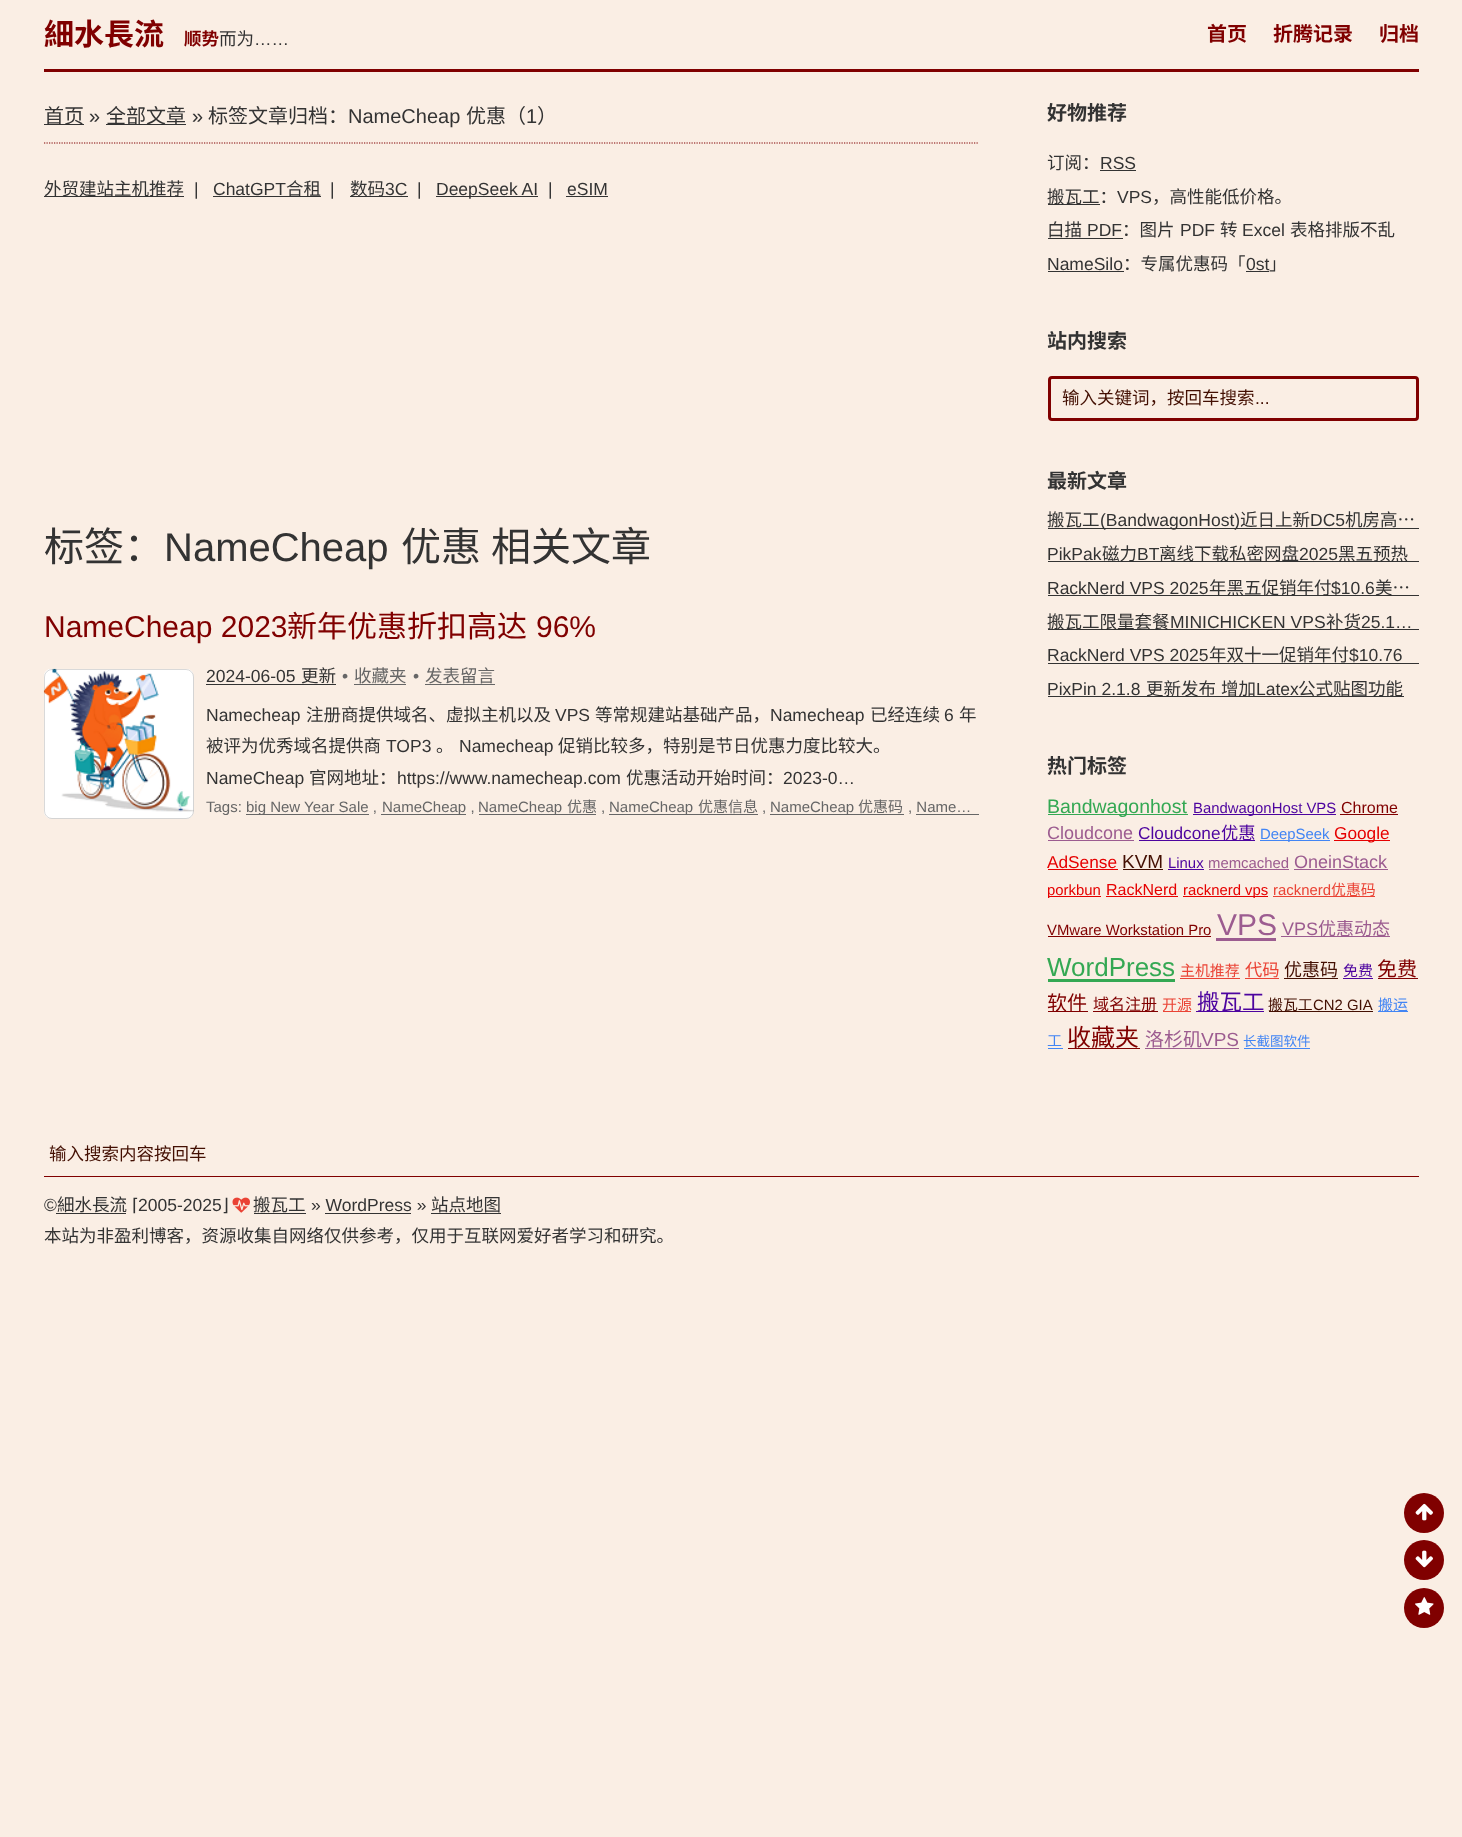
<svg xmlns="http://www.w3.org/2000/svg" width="1462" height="1837">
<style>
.a{font:bold 30px Noto Sans CJK SC;fill:#800000}
.b{font:bold 17.5px Noto Sans CJK SC;fill:#800000}
.c{font:17.5px Noto Sans CJK SC;fill:#333}
.d{font:17.5px Liberation Sans;fill:#333}
.e{font:bold 20px Noto Sans CJK SC;fill:#800000}
.f{font:20px Noto Sans CJK SC;fill:#333}
.g{font:20px Liberation Sans;fill:#333}
.h{font:40px Noto Sans CJK SC;fill:#333}
.i{font:40px Liberation Sans;fill:#333}
.j{font:30px Liberation Sans;fill:#800000}
.k{font:30px Noto Sans CJK SC;fill:#800000}
.l{font:17.5px Liberation Sans;fill:#666}
.m{font:17.5px Noto Sans CJK SC;fill:#666}
.n{font:15px Liberation Sans;fill:#666}
.o{font:15px Noto Sans CJK SC;fill:#666}
.p{font:bold 20px Noto Sans CJK SC;fill:#333}
.q{font:17.5px Noto Sans CJK SC;fill:#430f02}
.r{font:17.5px Liberation Sans;fill:#430f02}
.s{font:19.5px Liberation Sans;fill:#34a853}
.t{font:14.9px Liberation Sans;fill:#4d049f}
.u{font:16px Liberation Sans;fill:#800000}
.v{font:18px Liberation Sans;fill:#9c5c90}
.w{font:17.25px Liberation Sans;fill:#4d049f}
.x{font:17.25px Noto Sans CJK SC;fill:#4d049f}
.y{font:14.9px Liberation Sans;fill:#4285f4}
.z{font:17.25px Liberation Sans;fill:#e60000}
.a1{font:19px Liberation Sans;fill:#430f02}
.b1{font:14.9px Liberation Sans;fill:#9c5c90}
.c1{font:14.9px Liberation Sans;fill:#e60000}
.d1{font:16px Liberation Sans;fill:#e60000}
.e1{font:14.9px Liberation Sans;fill:#ea4335}
.f1{font:14.9px Noto Sans CJK SC;fill:#ea4335}
.g1{font:14.9px Liberation Sans;fill:#800000}
.h1{font:30px Liberation Sans;fill:#9c5c90}
.i1{font:18px Noto Sans CJK SC;fill:#9c5c90}
.j1{font:26px Liberation Sans;fill:#34a853}
.k1{font:17.25px Noto Sans CJK SC;fill:#ea4335}
.l1{font:18px Noto Sans CJK SC;fill:#430f02}
.m1{font:14.9px Noto Sans CJK SC;fill:#4d049f}
.n1{font:20px Noto Sans CJK SC;fill:#800000}
.o1{font:16px Noto Sans CJK SC;fill:#800000}
.p1{font:22.5px Noto Sans CJK SC;fill:#4d049f}
.q1{font:14.9px Noto Sans CJK SC;fill:#430f02}
.r1{font:14.9px Liberation Sans;fill:#430f02}
.s1{font:14.9px Noto Sans CJK SC;fill:#4285f4}
.t1{font:24px Noto Sans CJK SC;fill:#800000}
.u1{font:19px Noto Sans CJK SC;fill:#9c5c90}
.v1{font:19px Liberation Sans;fill:#9c5c90}
.w1{font:13.5px Noto Sans CJK SC;fill:#4285f4}
.x1{font:17.5px DejaVu Sans;fill:#333}
</style>
<rect width="100%" height="100%" fill="#faeee4"/>
<path fill="#800000" d="M44 69h1375v3H44z"/>
<path fill="none" stroke="#800000" stroke-width="1.2" stroke-dasharray="1.25 1.25" d="M44 143h935"/>
<path fill="#333" d="M44 124h40v1H44z"/>
<path fill="#333" d="M106 124h80v1H106z"/>
<path fill="#333" d="M44 196h140v1H44z"/>
<path fill="#333" d="M213 196h108v1H213z"/>
<path fill="#333" d="M350 196h58v1H350z"/>
<path fill="#333" d="M436 196h102v1H436z"/>
<path fill="#333" d="M566 196h42v1H566z"/>
<rect fill="#f0f0f0" x="44" y="669" width="150" height="150" rx="8"/>
<image href="1.png" x="43" y="668" width="151" height="151"/>
<rect fill="none" stroke="#00000026" x="44.5" y="669.5" width="149" height="149" rx="7.5"/>
<path fill="#333" d="M206 684h130v1H206z"/>
<path fill="#666" d="M354 684h52v1H354z"/>
<path fill="#666" d="M425 684h70v1H425z"/>
<path fill="#666" d="M246 814h123v1H246z"/>
<path fill="#666" d="M381 814h85v1H381z"/>
<path fill="#666" d="M479 814h117v1H479z"/>
<path fill="#666" d="M609 814h149v1H609z"/>
<path fill="#666" d="M770 814h134v1H770z"/>
<path fill="#666" d="M916 814h63v1H916z"/>
<path fill="#333" d="M1100 170h36v1H1100z"/>
<path fill="#333" d="M1048 204h52v1H1048z"/>
<path fill="#333" d="M1048 238h75v1H1048z"/>
<path fill="#333" d="M1048 271h76v1H1048z"/>
<path fill="#333" d="M1246 271h23v1H1246z"/>
<rect fill="none" stroke="#800000" stroke-width="3" x="1049.5" y="377.5" width="368" height="42" rx="2.5"/>
<path fill="#333" d="M1048 528h371v1H1048z"/>
<path fill="#333" d="M1048 561h371v1H1048z"/>
<path fill="#333" d="M1048 595h371v1H1048z"/>
<path fill="#333" d="M1048 629h371v1H1048z"/>
<path fill="#333" d="M1048 663h371v1H1048z"/>
<path fill="#333" d="M1048 696h356v1H1048z"/>
<path fill="#34a853" d="M1048 814h140v1H1048z"/>
<path fill="#4d049f" d="M1193 814h143v1H1193z"/>
<path fill="#800000" d="M1340 814h58v1H1340z"/>
<path fill="#9c5c90" d="M1048 840h86v1H1048z"/>
<path fill="#4d049f" d="M1139 840h116v1H1139z"/>
<path fill="#4285f4" d="M1260 840h70v1H1260z"/>
<path fill="#e60000" d="M1334 840h56v1H1334z"/>
<path fill="#e60000" d="M1048 869h70v1H1048z"/>
<path fill="#430f02" d="M1123 869h40v1H1123z"/>
<path fill="#4d049f" d="M1168 869h36v1H1168z"/>
<path fill="#9c5c90" d="M1209 869h80v1H1209z"/>
<path fill="#9c5c90" d="M1294 869h94v1H1294z"/>
<path fill="#e60000" d="M1048 896h53v1H1048z"/>
<path fill="#e60000" d="M1106 896h72v1H1106z"/>
<path fill="#e60000" d="M1183 896h85v1H1183z"/>
<path fill="#ea4335" d="M1273 896h102v1H1273z"/>
<path fill="#800000" d="M1048 936h163v1H1048z"/>
<path fill="#9c5c90" d="M1216 938h60v3H1216z"/>
<path fill="#9c5c90" d="M1281 936h109v1H1281z"/>
<path fill="#34a853" d="M1048 979h127v3H1048z"/>
<path fill="#ea4335" d="M1180 978h60v1H1180z"/>
<path fill="#ea4335" d="M1245 978h34v1H1245z"/>
<path fill="#430f02" d="M1284 978h54v1H1284z"/>
<path fill="#4d049f" d="M1343 978h30v1H1343z"/>
<path fill="#800000" d="M1378 978h40v1H1378z"/>
<path fill="#800000" d="M1048 1011h40v1H1048z"/>
<path fill="#800000" d="M1093 1011h65v1H1093z"/>
<path fill="#ea4335" d="M1163 1011h28v1H1163z"/>
<path fill="#4d049f" d="M1196 1011h68v1H1196z"/>
<path fill="#430f02" d="M1269 1011h104v1H1269z"/>
<path fill="#4285f4" d="M1378 1011h30v1H1378z"/>
<path fill="#4285f4" d="M1048 1048h15v1H1048z"/>
<path fill="#800000" d="M1068 1048h72v1H1068z"/>
<path fill="#9c5c90" d="M1145 1048h94v1H1145z"/>
<path fill="#4285f4" d="M1244 1048h66v1H1244z"/>
<path fill="#800000" d="M44 1176h1375v1H44z"/>
<path fill="#333" d="M56 1213h70v1H56z"/>
<image href="2.png" x="232" y="1197" width="18" height="16"/>
<path fill="#333" d="M254 1213h52v1H254z"/>
<path fill="#333" d="M431 1213h70v1H431z"/>
<path fill="#333" d="M325 1213h86v1H325z"/>
<circle fill="#800000" cx="1424" cy="1513" r="20"/>
<image href="3.png" x="1415" y="1503" width="18" height="18"/>
<circle fill="#800000" cx="1424" cy="1560" r="20"/>
<image href="4.png" x="1415" y="1550" width="18" height="18"/>
<circle fill="#800000" cx="1424" cy="1608" r="20"/>
<image href="5.png" x="1415" y="1597" width="19" height="18"/>
<text class="a" x="44" y="45">細水長流</text>
<text class="b" x="184" y="45">顺势</text>
<text class="c" x="219" y="45">而为</text>
<text class="d" x="254" y="45">……</text>
<text class="e" x="1207" y="41">首页</text>
<text class="e" x="1273" y="41">折腾记录</text>
<text class="e" x="1379" y="41">归档</text>
<text class="f" x="44" y="123">首页</text>
<text class="g" x="89" y="123">»</text>
<text class="f" x="106" y="123">全部文章</text>
<text class="g" x="192" y="123">»</text>
<text class="f" x="208" y="123">标签文章归档：</text>
<text class="g" x="348" y="123">NameCheap</text>
<text class="f" x="466" y="123">优惠（</text>
<text class="g" x="526" y="123">1</text>
<text class="f" x="537" y="123">）</text>
<text class="c" x="44" y="195">外贸建站主机推荐</text>
<text class="d" x="194" y="195">|</text>
<text class="d" x="213" y="195">ChatGPT</text>
<text class="c" x="286" y="195">合租</text>
<text class="d" x="330" y="195">|</text>
<text class="c" x="350" y="195">数码</text>
<text class="d" x="385" y="195">3C</text>
<text class="d" x="417" y="195">|</text>
<text class="d" x="436" y="195">DeepSeek AI</text>
<text class="d" x="548" y="195">|</text>
<text class="d" x="567" y="195">eSIM</text>
<text class="h" x="44" y="561">标签：</text>
<text class="i" x="164" y="561">NameCheap</text>
<text class="h" x="401" y="561" word-spacing="1">优惠 相关文章</text>
<text class="j" x="44" y="637">NameCheap 2023</text>
<text class="k" x="287" y="637">新年优惠折扣高达</text>
<text class="j" x="536" y="637">96%</text>
<text class="d" x="206" y="682">2024-06-05</text>
<text class="c" x="301" y="682">更新</text>
<text class="l" x="342" y="682">•</text>
<text class="m" x="354" y="682">收藏夹</text>
<text class="l" x="413" y="682">•</text>
<text class="m" x="425" y="682">发表留言</text>
<text class="d" x="206" y="721">Namecheap</text>
<text class="c" x="306" y="721">注册商提供域名、虚拟主机以及</text>
<text class="d" x="555" y="721">VPS</text>
<text class="c" x="595" y="721">等常规建站基础产品，</text>
<text class="d" x="770" y="721">Namecheap</text>
<text class="c" x="870" y="721">已经连续</text>
<text class="d" x="944" y="721">6</text>
<text class="c" x="959" y="721">年</text>
<text class="c" x="206" y="752">被评为优秀域名提供商</text>
<text class="d" x="386" y="752">TOP3</text>
<text class="c" x="436" y="752">。</text>
<text class="d" x="459" y="752">Namecheap</text>
<text class="c" x="558" y="752">促销比较多，特别是节日优惠力度比较大。</text>
<text class="d" x="206" y="784">NameCheap</text>
<text class="c" x="309" y="784">官网地址：</text>
<text class="d" x="397" y="784">https://www.namecheap.com</text>
<text class="c" x="626" y="784">优惠活动开始时间：</text>
<text class="d" x="783" y="784">2023-0…</text>
<text class="n" x="206" y="812">Tags:</text>
<text class="n" x="246" y="812">big New Year Sale ,</text>
<text class="n" x="382" y="812">NameCheap ,</text>
<text class="n" x="478" y="812">NameCheap</text>
<text class="o" x="567" y="812">优惠</text>
<text class="n" x="601" y="812">,</text>
<text class="n" x="609" y="812">NameCheap</text>
<text class="o" x="698" y="812">优惠信息</text>
<text class="n" x="762" y="812">,</text>
<text class="n" x="770" y="812">NameCheap</text>
<text class="o" x="858" y="812">优惠码</text>
<text class="n" x="908" y="812">, Name…</text>
<text class="p" x="1047" y="120">好物推荐</text>
<text class="c" x="1047" y="169">订阅：</text>
<text class="d" x="1100" y="169">RSS</text>
<text class="c" x="1047" y="203">搬瓦工：</text>
<text class="d" x="1117" y="203">VPS</text>
<text class="c" x="1152" y="203">，高性能低价格。️</text>
<text class="c" x="1047" y="236">白描</text>
<text class="d" x="1087" y="236">PDF</text>
<text class="c" x="1122" y="236">：图片</text>
<text class="d" x="1180" y="236">PDF</text>
<text class="c" x="1220" y="236">转</text>
<text class="d" x="1242" y="236">Excel</text>
<text class="c" x="1290" y="236">表格排版不乱</text>
<text class="d" x="1047" y="270">NameSilo</text>
<text class="c" x="1123" y="270">：专属优惠码「</text>
<text class="d" x="1246" y="270">0st</text>
<text class="c" x="1269" y="270">」</text>
<text class="p" x="1047" y="348">站内搜索</text>
<text class="q" x="1062" y="404">输入关键词，按回车搜索</text>
<text class="r" x="1255" y="404">...</text>
<text class="p" x="1047" y="488">最新文章</text>
<text class="c" x="1047" y="526">搬瓦工</text>
<text class="d" x="1100" y="526">(BandwagonHost)</text>
<text class="c" x="1240" y="526">近日上新</text>
<text class="d" x="1310" y="526">DC5</text>
<text class="c" x="1345" y="526">机房高…</text>
<text class="d" x="1047" y="560">PikPak</text>
<text class="c" x="1102" y="560">磁力</text>
<text class="d" x="1137" y="560">BT</text>
<text class="c" x="1159" y="560">离线下载私密网盘</text>
<text class="d" x="1299" y="560">2025</text>
<text class="c" x="1338" y="560">黑五预热</text>
<text class="d" x="1047" y="594">RackNerd VPS 2025</text>
<text class="c" x="1209" y="594">年黑五促销年付</text>
<text class="d" x="1331" y="594">$10.6</text>
<text class="c" x="1375" y="594">美…</text>
<text class="c" x="1047" y="628">搬瓦工限量套餐</text>
<text class="d" x="1170" y="628">MINICHICKEN VPS</text>
<text class="c" x="1326" y="628">补货</text>
<text class="d" x="1361" y="628">25.1…</text>
<text class="d" x="1047" y="661">RackNerd VPS 2025</text>
<text class="c" x="1209" y="661">年双十一促销年付</text>
<text class="d" x="1349" y="661">$10.76</text>
<text class="d" x="1047" y="695">PixPin 2.1.8</text>
<text class="c" x="1146" y="695">更新发布</text>
<text class="c" x="1221" y="695">增加</text>
<text class="d" x="1256" y="695">Latex</text>
<text class="c" x="1298" y="695">公式贴图功能</text>
<text class="p" x="1047" y="773">热门标签</text>
<text class="s" x="1047" y="813">Bandwagonhost</text>
<text class="t" x="1193" y="813">BandwagonHost VPS</text>
<text class="u" x="1341" y="813">Chrome</text>
<text class="v" x="1047" y="839">Cloudcone</text>
<text class="w" x="1138" y="839">Cloudcone</text>
<text class="x" x="1221" y="839">优惠</text>
<text class="y" x="1260" y="839">DeepSeek</text>
<text class="z" x="1334" y="839">Google</text>
<text class="z" x="1047" y="868">AdSense</text>
<text class="a1" x="1122" y="868">KVM</text>
<text class="t" x="1168" y="868">Linux</text>
<text class="b1" x="1208" y="868">memcached</text>
<text class="v" x="1294" y="868">OneinStack</text>
<text class="c1" x="1047" y="895">porkbun</text>
<text class="d1" x="1106" y="895">RackNerd</text>
<text class="c1" x="1183" y="895">racknerd vps</text>
<text class="e1" x="1273" y="895">racknerd</text>
<text class="f1" x="1331" y="895">优惠码</text>
<text class="g1" x="1047" y="935">VMware Workstation Pro</text>
<text class="h1" x="1217" y="935">VPS</text>
<text class="v" x="1282" y="935">VPS</text>
<text class="i1" x="1318" y="935">优惠动态</text>
<text class="j1" x="1047" y="976">WordPress</text>
<text class="f1" x="1180" y="976">主机推荐</text>
<text class="k1" x="1245" y="976">代码</text>
<text class="l1" x="1284" y="976">优惠码</text>
<text class="m1" x="1343" y="976">免费</text>
<text class="n1" x="1377" y="976">免费</text>
<text class="n1" x="1047" y="1010">软件</text>
<text class="o1" x="1093" y="1010">域名注册</text>
<text class="f1" x="1162" y="1010">开源</text>
<text class="p1" x="1197" y="1010">搬瓦工</text>
<text class="q1" x="1268" y="1010">搬瓦工</text>
<text class="r1" x="1313" y="1010">CN2 GIA</text>
<text class="s1" x="1378" y="1010">搬运</text>
<text class="s1" x="1047" y="1046">工</text>
<text class="t1" x="1067" y="1046">收藏夹</text>
<text class="u1" x="1145" y="1046">洛杉矶</text>
<text class="v1" x="1201" y="1046">VPS</text>
<text class="w1" x="1243" y="1046">长截图软件</text>
<text class="q" x="49" y="1160">输入搜索内容按回车</text>
<text class="d" x="44" y="1211">©</text>
<text class="c" x="57" y="1211">細水長流</text>
<text class="x1" x="132" y="1211">⌈</text>
<text class="d" x="138" y="1211">2005-2025</text>
<text class="x1" x="222" y="1211">⌋</text>
<text class="c" x="253" y="1211">搬瓦工</text>
<text class="d" x="311" y="1211">» WordPress »</text>
<text class="c" x="431" y="1211">站点地图</text>
<text class="c" x="44" y="1242">本站为非盈利博客，资源收集自网络仅供参考，仅用于互联网爱好者学习和研究。</text>
</svg>
